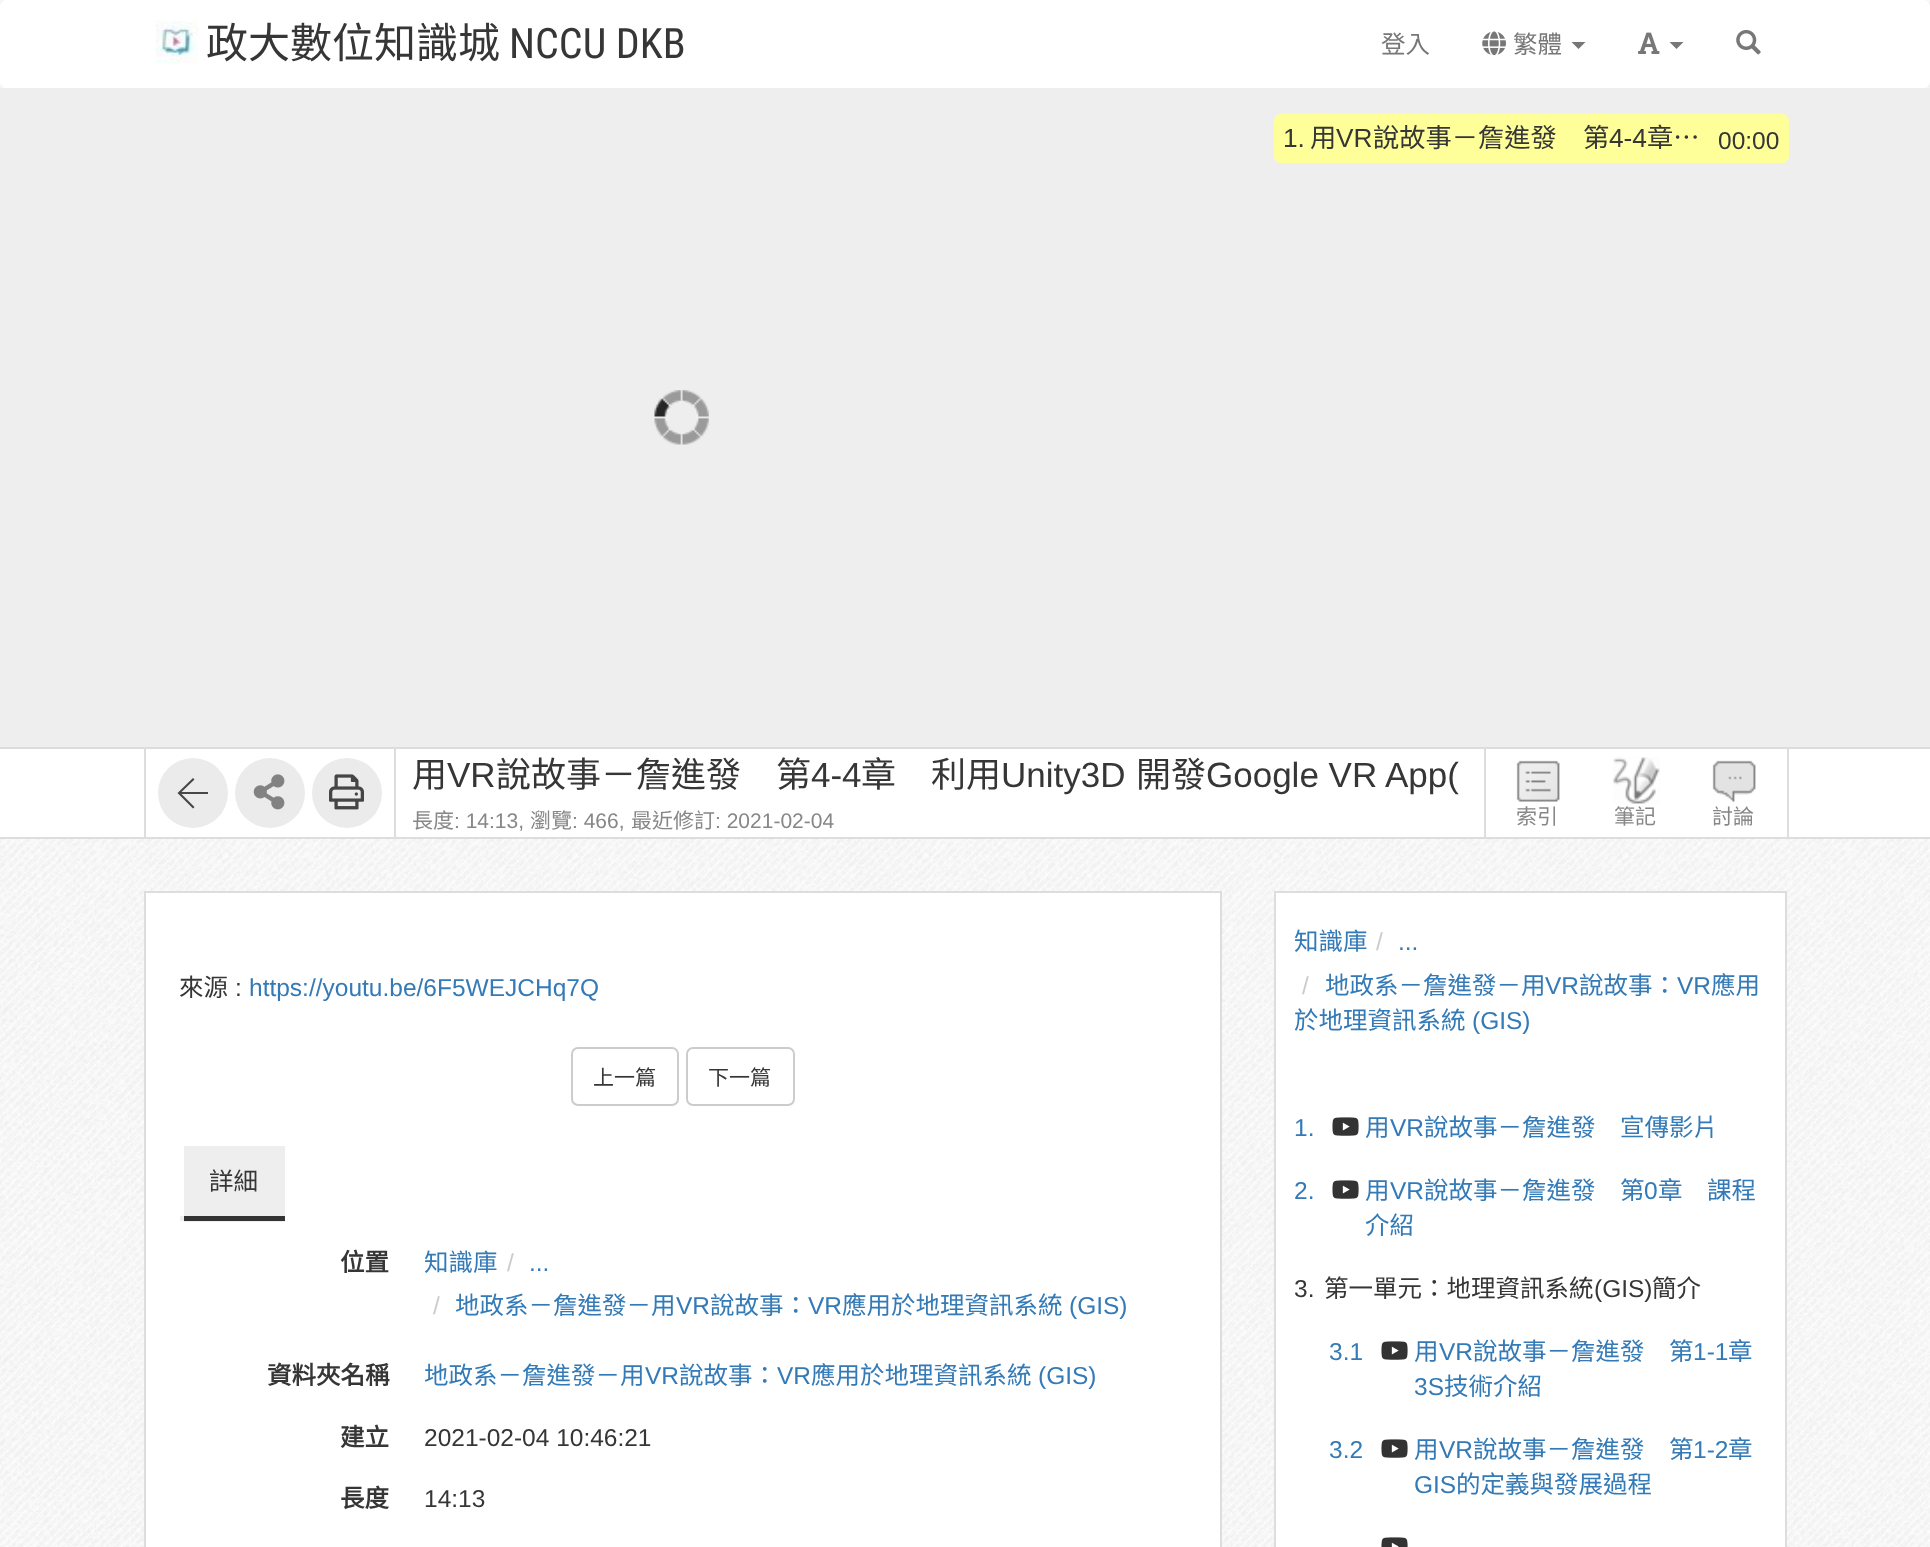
<svg xmlns="http://www.w3.org/2000/svg" width="1930" height="1547">
<style>
.a{font:42px Noto Sans CJK TC;fill:#363636}
.b{font:42px Roboto Condensed;fill:#363636}
.c{font:24.5px Noto Sans CJK TC;fill:#777}
.d{font:26.25px Liberation Sans;fill:#363636}
.e{font:26.25px Noto Sans CJK TC;fill:#363636}
.f{font:24.5px Liberation Sans;fill:#363636}
.g{font:35px Noto Sans CJK TC;fill:#363636}
.h{font:35px Liberation Sans;fill:#363636}
.i{font:21px Noto Sans CJK TC;fill:#878787}
.j{font:21px Liberation Sans;fill:#878787}
.k{font:24.5px Noto Sans CJK TC;fill:#363636}
.l{font:24.5px Liberation Sans;fill:#337ab7}
.m{font:21px Noto Sans CJK TC;fill:#363636}
.n{font:bold 24.5px Noto Sans CJK TC;fill:#363636}
.o{font:24.5px Noto Sans CJK TC;fill:#337ab7}
.p{font:24.5px Liberation Sans;fill:#ccc}
</style>
<rect width="100%" height="100%" fill="#fff"/>
<image href="1.png" x="0" y="0" width="1930" height="1547"/>
<rect fill="#fff" width="1930" height="88" rx="7"/>
<image href="2.png" x="155" y="21" width="43" height="42"/>
<image href="3.png" x="1482" y="31" width="24" height="25"/>
<path fill="#777" d="M1571.5 42h14l-7 7z"/>
<image href="4.png" x="1638" y="32" width="22" height="22"/>
<path fill="#777" d="M1669.5 42h14l-7 7z"/>
<image href="5.png" x="1736" y="29" width="25" height="26"/>
<path fill="#eee" d="M0 88h1930v659H0z"/>
<rect fill="#ff9" x="1274" y="114" width="515" height="49" rx="7"/>
<image href="6.png" x="654" y="390" width="55" height="55"/>
<path fill="#fff" d="M0 749h1930v88H0z"/>
<path fill="#ddd" d="M0 747h1930v2H0z"/>
<path fill="#ddd" d="M0 837h1930v2H0z"/>
<path fill="#ddd" d="M144 749h2v88H144z"/>
<circle fill="#ebebeb" cx="193" cy="793" r="35"/>
<path fill="#474747" d="M208 794h-26.5l13 13l-1.5 1.5l-15.5-15.5l15.5-15l1.5 1.5l-13 12.5h26.5z"/>
<circle fill="#ebebeb" cx="270" cy="793" r="35"/>
<image href="7.png" x="253" y="774" width="32" height="36"/>
<circle fill="#ebebeb" cx="347" cy="793" r="35"/>
<image href="8.png" x="329" y="774" width="35" height="36"/>
<path fill="#ddd" d="M1484 749h2v89H1484z"/>
<path fill="#ddd" d="M394 749h2v89H394z"/>
<path fill="#ddd" d="M1787 749h2v88H1787z"/>
<image href="9.png" x="1516" y="760" width="44" height="42"/>
<image href="10.png" x="1613" y="757" width="47" height="47"/>
<image href="11.png" x="1712" y="760" width="44" height="42"/>
<path fill="#fff" stroke="#ddd" stroke-width="2" d="M145 892h1076v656H145z"/>
<rect fill="none" stroke="#ccc" stroke-width="2" x="572" y="1048" width="106" height="57" rx="6"/>
<rect fill="none" stroke="#ccc" stroke-width="2" x="687" y="1048" width="107" height="57" rx="6"/>
<path fill="#eee" d="M184 1146h101v76H184z"/>
<path fill="#333" d="M184 1216h101v5H184z"/>
<path fill="#eee" d="M180 1216h4v5H180z"/>
<path fill="#fff" stroke="#ddd" stroke-width="2" d="M1275 892h511v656H1275z"/>
<image href="12.png" x="1332" y="1117" width="27" height="19"/>
<image href="12.png" x="1332" y="1180" width="27" height="19"/>
<image href="12.png" x="1381" y="1341" width="27" height="19"/>
<image href="12.png" x="1381" y="1439" width="27" height="19"/>
<image href="13.png" x="1381" y="1537" width="27" height="10"/>
<text class="a" x="206" y="58">政大數位知識城</text>
<text class="b" x="509" y="58">NCCU DKB</text>
<text class="c" x="1381" y="53">登入</text>
<text class="c" x="1513" y="53">繁體</text>
<text class="d" x="1283" y="147">1.</text>
<text class="e" x="1310" y="147">用</text>
<text class="d" x="1336" y="147">VR</text>
<text class="e" x="1373" y="147">說故事－詹進發　第</text>
<text class="d" x="1609" y="147">4-4</text>
<text class="e" x="1647" y="147">章…</text>
<text class="f" x="1718" y="149">00:00</text>
<text class="g" x="412" y="787">用</text>
<text class="h" x="447" y="787">VR</text>
<text class="g" x="496" y="787">說故事－詹進發　第</text>
<text class="h" x="811" y="787">4-4</text>
<text class="g" x="861" y="787">章　利用</text>
<text class="h" x="1001" y="787">Unity3D</text>
<text class="g" x="1136" y="787">開發</text>
<text class="h" x="1206" y="787">Google VR App(</text>
<text class="i" x="412" y="828">長度</text>
<text class="j" x="454" y="828">: 14:13,</text>
<text class="i" x="530" y="828">瀏覽</text>
<text class="j" x="572" y="828">: 466,</text>
<text class="i" x="631" y="828">最近修訂</text>
<text class="j" x="715" y="828">: 2021-02-04</text>
<text class="i" x="1516" y="824">索引</text>
<text class="i" x="1614" y="824">筆記</text>
<text class="i" x="1712" y="824">討論</text>
<text class="k" x="179" y="996">來源</text>
<text class="f" x="235" y="996">:</text>
<text class="l" x="249" y="996">https://youtu.be/6F5WEJCHq7Q</text>
<text class="m" x="593" y="1085">上一篇</text>
<text class="m" x="708" y="1085">下一篇</text>
<text class="k" x="209" y="1190">詳細</text>
<text class="n" x="340" y="1271">位置</text>
<text class="o" x="424" y="1271">知識庫</text>
<text class="p" x="507" y="1271">/</text>
<text class="l" x="529" y="1271">...</text>
<text class="p" x="433" y="1314">/</text>
<text class="o" x="455" y="1314">地政系－詹進發－用</text>
<text class="l" x="676" y="1314">VR</text>
<text class="o" x="710" y="1314">說故事：</text>
<text class="l" x="808" y="1314">VR</text>
<text class="o" x="842" y="1314">應用於地理資訊系統</text>
<text class="l" x="1069" y="1314">(GIS)</text>
<text class="n" x="267" y="1384">資料夾名稱</text>
<text class="o" x="424" y="1384">地政系－詹進發－用</text>
<text class="l" x="645" y="1384">VR</text>
<text class="o" x="679" y="1384">說故事：</text>
<text class="l" x="777" y="1384">VR</text>
<text class="o" x="811" y="1384">應用於地理資訊系統</text>
<text class="l" x="1038" y="1384">(GIS)</text>
<text class="n" x="340" y="1446">建立</text>
<text class="f" x="424" y="1446">2021-02-04 10:46:21</text>
<text class="n" x="340" y="1507">長度</text>
<text class="f" x="424" y="1507">14:13</text>
<text class="o" x="1294" y="950">知識庫</text>
<text class="p" x="1376" y="950">/</text>
<text class="l" x="1398" y="950">...</text>
<text class="p" x="1302" y="994">/</text>
<text class="o" x="1325" y="994">地政系－詹進發－用</text>
<text class="l" x="1545" y="994">VR</text>
<text class="o" x="1579" y="994">說故事：</text>
<text class="l" x="1677" y="994">VR</text>
<text class="o" x="1711" y="994">應用</text>
<text class="o" x="1294" y="1029">於地理資訊系統</text>
<text class="l" x="1472" y="1029">(GIS)</text>
<text class="l" x="1294" y="1136">1.</text>
<text class="o" x="1365" y="1136">用</text>
<text class="l" x="1390" y="1136">VR</text>
<text class="o" x="1424" y="1136">說故事－詹進發　宣傳影片</text>
<text class="l" x="1294" y="1199">2.</text>
<text class="o" x="1365" y="1199">用</text>
<text class="l" x="1390" y="1199">VR</text>
<text class="o" x="1424" y="1199">說故事－詹進發　第</text>
<text class="l" x="1644" y="1199">0</text>
<text class="o" x="1658" y="1199">章　課程</text>
<text class="o" x="1365" y="1234">介紹</text>
<text class="f" x="1294" y="1297">3.</text>
<text class="k" x="1324" y="1297">第一單元：地理資訊系統</text>
<text class="f" x="1594" y="1297">(GIS)</text>
<text class="k" x="1652" y="1297">簡介</text>
<text class="l" x="1329" y="1360">3.1</text>
<text class="o" x="1414" y="1360">用</text>
<text class="l" x="1439" y="1360">VR</text>
<text class="o" x="1473" y="1360">說故事－詹進發　第</text>
<text class="l" x="1693" y="1360">1-1</text>
<text class="o" x="1728" y="1360">章</text>
<text class="l" x="1414" y="1395">3S</text>
<text class="o" x="1444" y="1395">技術介紹</text>
<text class="l" x="1329" y="1458">3.2</text>
<text class="o" x="1414" y="1458">用</text>
<text class="l" x="1439" y="1458">VR</text>
<text class="o" x="1473" y="1458">說故事－詹進發　第</text>
<text class="l" x="1693" y="1458">1-2</text>
<text class="o" x="1728" y="1458">章</text>
<text class="l" x="1414" y="1493">GIS</text>
<text class="o" x="1456" y="1493">的定義與發展過程</text>
</svg>
